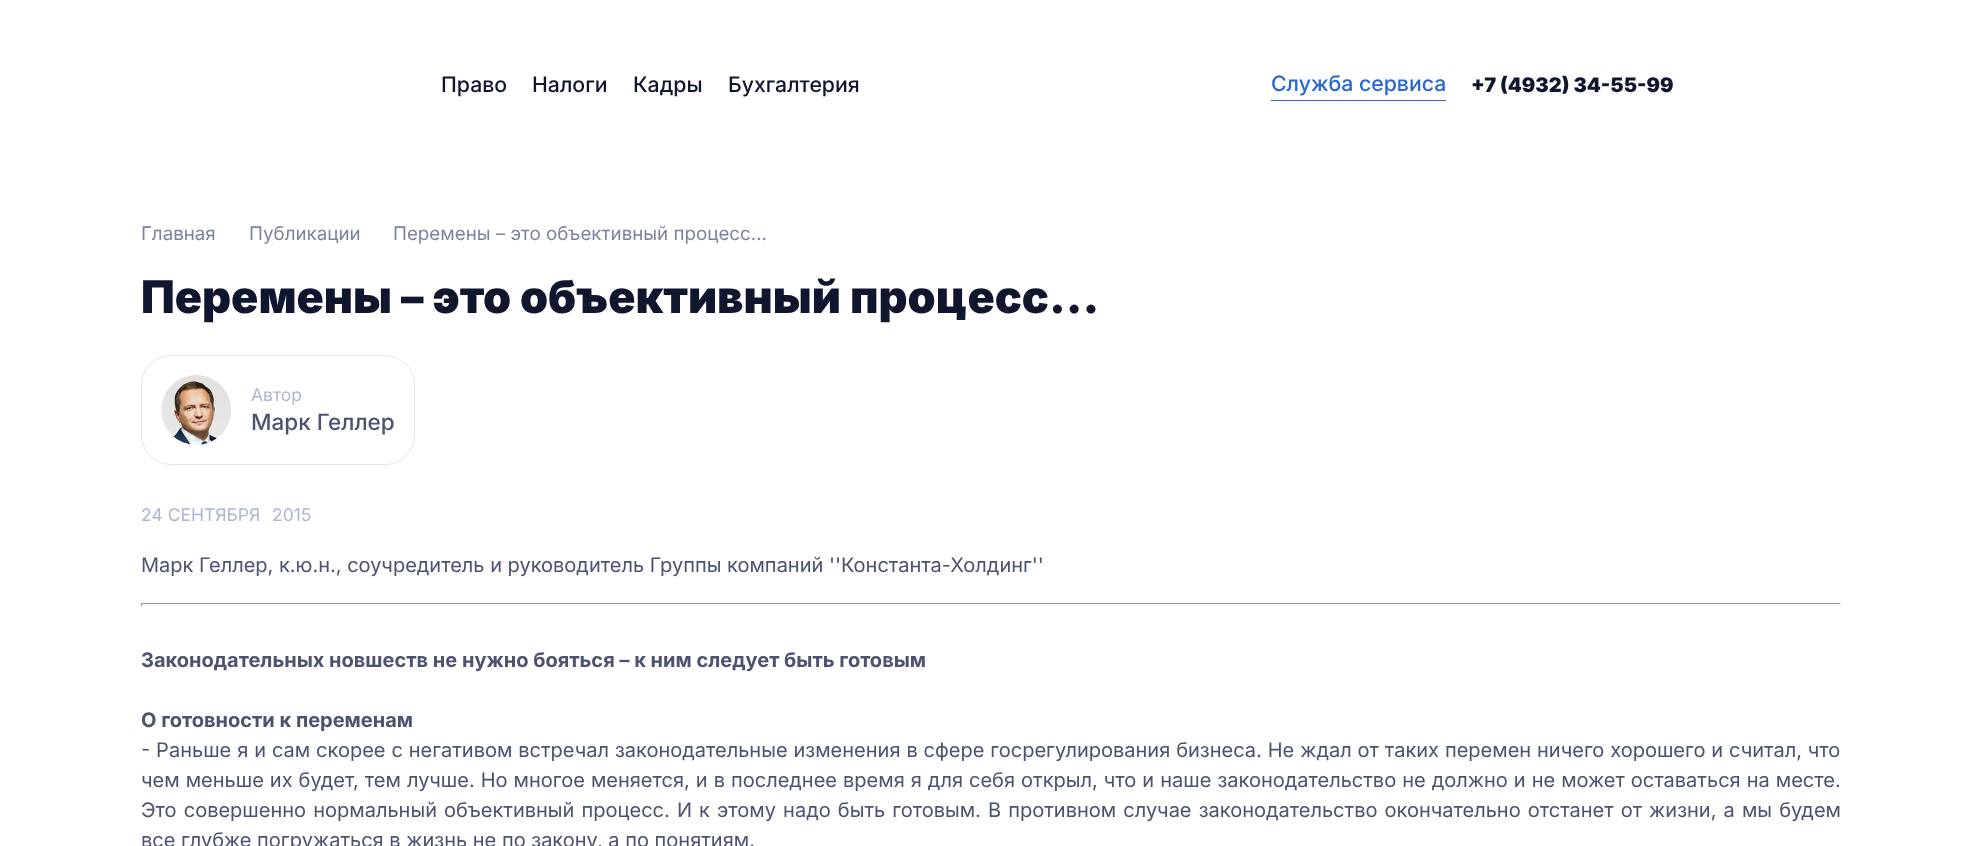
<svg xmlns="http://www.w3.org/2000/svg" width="1982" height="846">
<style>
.a{font:500 21.25px Inter;fill:#0f162e}
.b{font:500 21.25px Inter;fill:#2866d3}
.c{font:900 20px Inter;fill:#0f162e}
.d{font:18.75px Inter;fill:#7c849d}
.e{font:900 45px Inter;fill:#0f162e}
.f{font:17.5px Inter;fill:#adb5cf}
.g{font:500 22.5px Inter;fill:#4b536f}
.h{font:20px Inter;fill:#4b536f}
.i{font:bold 20px Inter;fill:#4b536f}
</style>
<rect width="100%" height="100%" fill="#fff"/>
<path fill="#2866d3" d="M1271 100h175v1H1271z"/>
<rect fill="none" stroke="#e1e4e9" x="141.5" y="355.5" width="273" height="109" rx="29.5"/>
<image href="1.png" x="161" y="375" width="70" height="70"/>
<path fill="#9f9f9f" d="M141 603h1700v1H141z"/>
<path fill="#eee" d="M1840 603h1v3H1840z"/>
<path fill="#eee" d="M141 604h1700v1H141z"/>
<path fill="#9f9f9f" d="M141 603h1v3H141z"/>
<text class="a" x="441" y="92">Право</text>
<text class="a" x="532" y="92">Налоги</text>
<text class="a" x="633" y="92">Кадры</text>
<text class="a" x="728" y="92">Бухгалтерия</text>
<text class="b" x="1271" y="91">Служба сервиса</text>
<text class="c" x="1471" y="92">+7 (4932) 34-55-99</text>
<text class="d" x="141" y="240">Главная</text>
<text class="d" x="249" y="240">Публикации</text>
<text class="d" x="393" y="240">Перемены – это объективный процесс…</text>
<text class="e" x="141" y="313">Перемены – это объективный процесс…</text>
<text class="f" x="251" y="401">Автор</text>
<text class="g" x="251" y="430">Марк Геллер</text>
<text class="f" x="141" y="521">24 СЕНТЯБРЯ</text>
<text class="f" x="272" y="521">2015</text>
<text class="h" x="141" y="572">Марк Геллер, к.ю.н., соучредитель и руководитель Группы компаний ''Константа-Холдинг''</text>
<text class="i" x="141" y="667">Законодательных новшеств не нужно бояться – к ним следует быть готовым</text>
<text class="i" x="141" y="727">О готовности к переменам</text>
<text class="h" x="141" y="757" word-spacing="0.3">- Раньше я и сам скорее с негативом встречал законодательные изменения в сфере госрегулирования бизнеса. Не ждал от таких перемен ничего хорошего и считал, что</text>
<text class="h" x="141" y="787" word-spacing="0.4">чем меньше их будет, тем лучше. Но многое меняется, и в последнее время я для себя открыл, что и наше законодательство не должно и не может оставаться на месте.</text>
<text class="h" x="141" y="817" word-spacing="1.5">Это совершенно нормальный объективный процесс. И к этому надо быть готовым. В противном случае законодательство окончательно отстанет от жизни, а мы будем</text>
<text class="h" x="141" y="847">все глубже погружаться в жизнь не по закону, а по понятиям.</text>
</svg>
